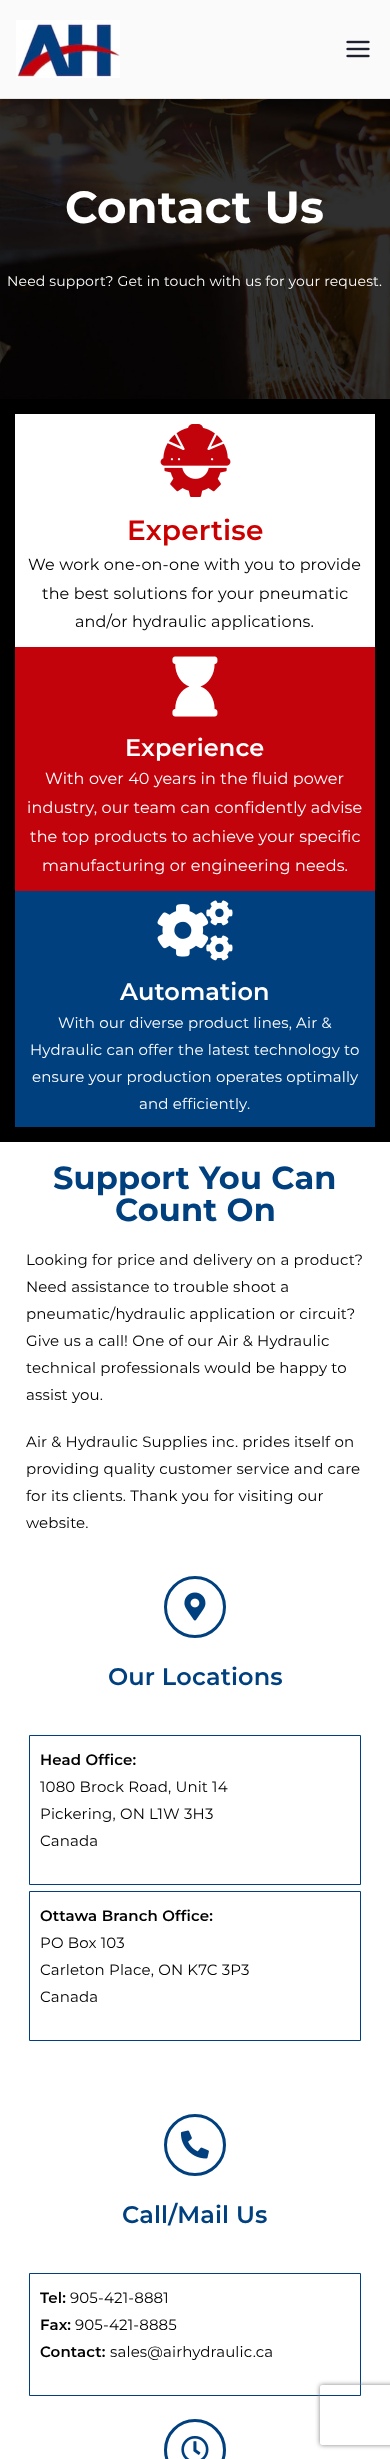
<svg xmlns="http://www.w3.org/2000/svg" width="390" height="2459">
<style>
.a{font:bold 45px Montserrat;letter-spacing:0.15px;fill:#fff}
.b{font:14px Montserrat;letter-spacing:0.15px;fill:#fff}
.c{font:600 28px Montserrat;letter-spacing:0.15px;fill:#cb0000}
.d{font:16px Montserrat;letter-spacing:0.15px;fill:#000}
.e{font:600 24px Montserrat;letter-spacing:0.15px;fill:#fff}
.f{font:16px Montserrat;letter-spacing:0.15px;fill:#fff}
.g{font:15px Montserrat;letter-spacing:0.15px;fill:#fff}
.h{font:bold 32px Montserrat;letter-spacing:0.15px;fill:#01407f}
.i{font:15px Montserrat;letter-spacing:0.15px;fill:#000}
.j{font:600 24px Montserrat;letter-spacing:0.15px;fill:#01407f}
.k{font:600 15px Montserrat;letter-spacing:0.15px;fill:#000}
</style>
<defs>
<clipPath id="clip1"><path d="M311 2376h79v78h-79zm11 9h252c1 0 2 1 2 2v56c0 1-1 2-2 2h-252c-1 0-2-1-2-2v-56c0-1 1-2 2-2z" clip-rule="evenodd"/></clipPath>
</defs>
<rect width="100%" height="100%" fill="#fafafa"/>
<path fill="#e4e4e7" d="M0 98h390v1H0z"/>
<image href="1.png" x="16" y="20" width="104" height="58"/>
<image href="2.png" x="346" y="40" width="24" height="18"/>
<path fill="#fff" d="M0 1142h390v1317H0z"/>
<image href="3.png" x="0" y="99" width="390" height="300"/>
<path fill="#000" d="M0 399h390v743H0z"/>
<path fill="#fff" d="M15 414h360v233H15z"/>
<image href="4.png" x="160" y="424" width="71" height="73"/>
<path fill="#c3030c" d="M15 647h360v244H15z"/>
<image href="5.png" x="172" y="656" width="46" height="61"/>
<path fill="#01407f" d="M15 891h360v236H15z"/>
<image href="6.png" x="157" y="900" width="76" height="61"/>
<circle fill="none" stroke="#01407f" stroke-width="3" cx="195" cy="1607" r="29.5"/>
<image href="7.png" x="184" y="1592" width="22" height="29"/>
<path fill="none" stroke="#01407f" d="M29.5 1735.5h331v149H29.5z"/>
<path fill="none" stroke="#01407f" d="M29.5 1891.5h331v149H29.5z"/>
<circle fill="none" stroke="#01407f" stroke-width="3" cx="195" cy="2145" r="29.5"/>
<image href="8.png" x="180" y="2130" width="29" height="29"/>
<path fill="none" stroke="#01407f" d="M29.5 2273.5h331v122H29.5z"/>
<circle fill="none" stroke="#01407f" stroke-width="3" cx="195" cy="2450" r="29.5"/>
<image href="9.png" x="181" y="2435" width="28" height="24"/>
<g clip-path="url(#clip1)">
<rect fill="#808080" filter="blur(2.5px)" x="320" y="2385" width="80" height="60" rx="2"/>
</g>
<text class="a" x="65" y="223">Contact Us</text>
<text class="b" x="7" y="286">Need support? Get in touch with us for your request.</text>
<text class="c" x="127" y="540">Expertise</text>
<text class="d" x="28" y="570">We work one-on-one with you to provide</text>
<text class="d" x="42" y="599">the best solutions for your pneumatic</text>
<text class="d" x="75" y="627">and/or hydraulic applications.</text>
<text class="e" x="125" y="756">Experience</text>
<text class="f" x="45" y="784">With over 40 years in the fluid power</text>
<text class="f" x="27" y="813">industry, our team can confidently advise</text>
<text class="f" x="30" y="842">the top products to achieve your specific</text>
<text class="f" x="42" y="871">manufacturing or engineering needs.</text>
<text class="e" x="120" y="1000">Automation</text>
<text class="g" x="58" y="1028">With our diverse product lines, Air &amp;</text>
<text class="g" x="30" y="1055">Hydraulic can offer the latest technology to</text>
<text class="g" x="32" y="1082">ensure your production operates optimally</text>
<text class="g" x="139" y="1109">and efficiently.</text>
<text class="h" x="53" y="1189">Support You Can</text>
<text class="h" x="115" y="1221">Count On</text>
<text class="i" x="26" y="1265">Looking for price and delivery on a product?</text>
<text class="i" x="26" y="1292">Need assistance to trouble shoot a</text>
<text class="i" x="26" y="1319">pneumatic/hydraulic application or circuit?</text>
<text class="i" x="26" y="1346">Give us a call! One of our Air &amp; Hydraulic</text>
<text class="i" x="26" y="1373">technical professionals would be happy to</text>
<text class="i" x="26" y="1400">assist you.</text>
<text class="i" x="26" y="1447">Air &amp; Hydraulic Supplies inc. prides itself on</text>
<text class="i" x="26" y="1474">providing quality customer service and care</text>
<text class="i" x="26" y="1501">for its clients. Thank you for visiting our</text>
<text class="i" x="26" y="1528">website.</text>
<text class="j" x="108" y="1685">Our Locations</text>
<text class="k" x="40" y="1765">Head Office:</text>
<text class="i" x="40" y="1792">1080 Brock Road, Unit 14</text>
<text class="i" x="40" y="1819">Pickering, ON L1W 3H3</text>
<text class="i" x="40" y="1846">Canada</text>
<text class="k" x="40" y="1921">Ottawa Branch Office:</text>
<text class="i" x="40" y="1948">PO Box 103</text>
<text class="i" x="40" y="1975">Carleton Place, ON K7C 3P3</text>
<text class="i" x="40" y="2002">Canada</text>
<text class="j" x="122" y="2223">Call/Mail Us</text>
<text class="k" x="40" y="2303">Tel:</text>
<text class="i" x="70" y="2303">905-421-8881</text>
<text class="k" x="40" y="2330">Fax:</text>
<text class="i" x="75" y="2330">905-421-8885</text>
<text class="k" x="40" y="2357">Contact:</text>
<text class="i" x="110" y="2357">sales@airhydraulic.ca</text>
</svg>
